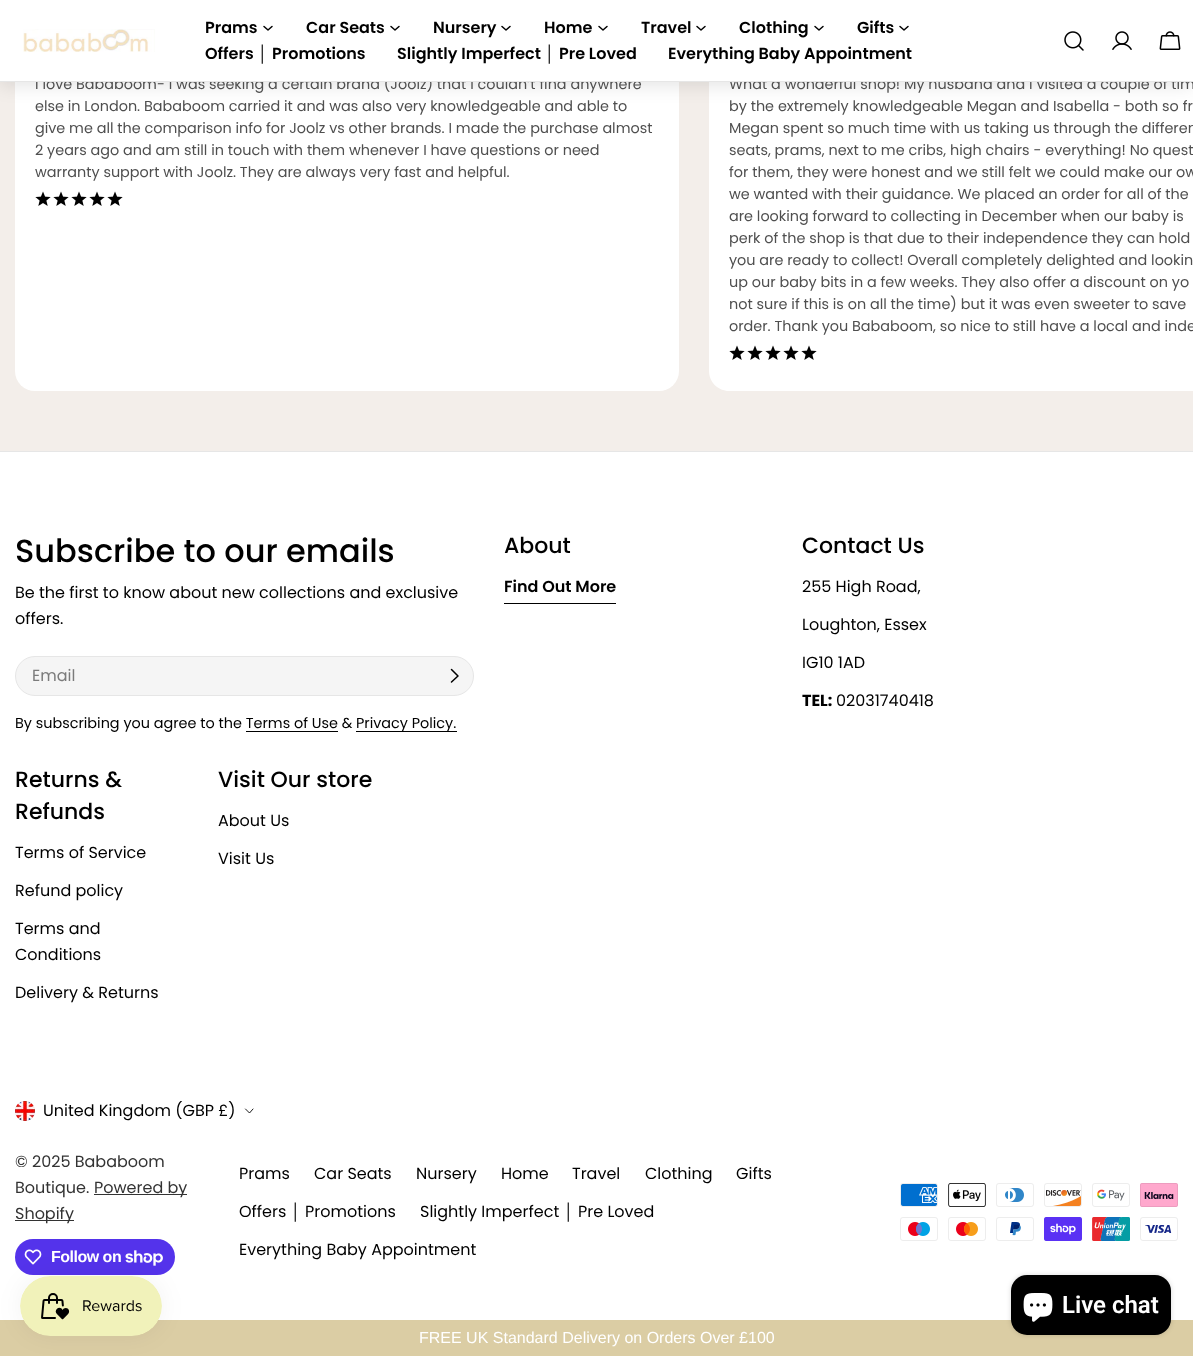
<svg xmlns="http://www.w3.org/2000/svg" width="1193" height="1356">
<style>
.a{font:14.4px Poppins;fill:#4f4f4f}
.b{font:600 16px Poppins;fill:#000}
.c{font:bold 16px Liberation Sans;fill:#000}
.d{font:500 32px Poppins;fill:#000}
.e{font:16px Poppins;fill:#000}
.f{font:16px Poppins;fill:#7b7b7b}
.g{font:14.4px Poppins;fill:#000}
.h{font:500 22px Poppins;fill:#000}
.i{font:bold 16px Poppins;fill:#000}
.j{font:16px Poppins;fill:#333}
.k{font:bold 16px Liberation Sans;letter-spacing:-0.5px;fill:#fff}
.l{font:16px Liberation Sans;fill:#000}
.m{font:600 24px Roboto;fill:#fff}
.n{font:16px Liberation Sans;fill:#fff}
</style>
<rect width="100%" height="100%" fill="#fff"/>
<path fill="#f3eeea" d="M0 82h1193v369H0z"/>
<rect fill="#fff" x="15" y="15" width="664" height="376" rx="20"/>
<path fill="#fff" d="M729 15h464v376h-464c-11 0-20-9-20-20v-336c0-11 9-20 20-20z"/>
<path fill="#0000001a" filter="blur(9px)" d="M0 4h1193v82H0z"/>
<image href="5.png" x="35" y="191" width="16" height="15"/>
<image href="5.png" x="53" y="191" width="16" height="15"/>
<image href="5.png" x="71" y="191" width="16" height="15"/>
<image href="5.png" x="89" y="191" width="16" height="15"/>
<image href="5.png" x="107" y="191" width="16" height="15"/>
<image href="5.png" x="729" y="345" width="16" height="15"/>
<image href="5.png" x="747" y="345" width="16" height="15"/>
<image href="5.png" x="765" y="345" width="16" height="15"/>
<image href="5.png" x="783" y="345" width="16" height="15"/>
<image href="5.png" x="801" y="345" width="16" height="15"/>
<path fill="#e6e6e6" d="M0 451h1193v1H0z"/>
<rect fill="#f5f5f5" stroke="#e6e6e6" x="15.5" y="656.5" width="458" height="39" rx="19.5"/>
<path fill="none" stroke="#000" stroke-width="1.5" stroke-linecap="round" stroke-linejoin="round" d="M451.5 669.5l6.5 6.5l-6.5 6"/>
<path fill="#000" d="M356 731h101v1H356z"/>
<path fill="#000" d="M246 731h92v1H246z"/>
<path fill="#000" d="M504 603h112v1H504z"/>
<image href="6.png" x="15" y="1101" width="20" height="20"/>
<path fill="none" stroke="#000" stroke-width="0.9" stroke-linecap="round" stroke-linejoin="round" d="M253 1109l-3.5 4l-4-4"/>
<path fill="#333" d="M94 1194h93v1H94z"/>
<path fill="#333" d="M15 1220h59v1H15z"/>
<rect fill="#5433eb" x="15" y="1239" width="160" height="36" rx="18"/>
<image href="7.png" x="24" y="1249" width="18" height="16"/>
<image href="8.png" x="125" y="1250" width="38" height="16"/>
<image href="9.png" x="900" y="1183" width="38" height="24"/>
<image href="10.png" x="948" y="1183" width="38" height="24"/>
<image href="11.png" x="996" y="1183" width="38" height="24"/>
<image href="12.png" x="1044" y="1183" width="38" height="24"/>
<image href="13.png" x="1092" y="1183" width="38" height="24"/>
<image href="14.png" x="1140" y="1183" width="38" height="24"/>
<image href="15.png" x="900" y="1217" width="38" height="24"/>
<image href="16.png" x="948" y="1217" width="38" height="24"/>
<image href="17.png" x="996" y="1217" width="38" height="24"/>
<image href="18.png" x="1044" y="1217" width="38" height="24"/>
<image href="19.png" x="1092" y="1217" width="38" height="24"/>
<image href="20.png" x="1140" y="1217" width="38" height="24"/>
<path fill="#dbcda4" d="M0 1320h1193v36H0z"/>
<rect fill="#0000000d" filter="blur(12.5px)" x="20" y="1276" width="142" height="60" rx="30"/>
<image href="21.png" x="20" y="1276" width="142" height="60"/>
<rect fill="#00000026" filter="blur(2.5px)" x="1011" y="1275" width="160" height="60" rx="16"/>
<rect fill="#000" x="1011" y="1275" width="160" height="60" rx="16"/>
<image href="22.png" x="1023" y="1293" width="30" height="29"/>
<text class="a" x="35" y="89">I love Bababoom- I was seeking a certain brand (Joolz) that I couldn’t find anywhere</text>
<text class="a" x="35" y="111">else in London. Bababoom carried it and was also very knowledgeable and able to</text>
<text class="a" x="35" y="133">give me all the comparison info for Joolz vs other brands. I made the purchase almost</text>
<text class="a" x="35" y="155">2 years ago and am still in touch with them whenever I have questions or need</text>
<text class="a" x="35" y="177">warranty support with Joolz. They are always very fast and helpful.</text>
<text class="a" x="729" y="89">What a wonderful shop! My husband and I visited a couple of tim</text>
<path fill="#fff" d="M0 0h1193v81H0z"/>
<text class="b" x="668" y="59">Everything Baby Appointment</text>
<text class="b" x="559" y="59">Pre Loved</text>
<text class="c" x="545" y="59">│</text>
<text class="b" x="397" y="59">Slightly Imperfect</text>
<text class="b" x="272" y="59">Promotions</text>
<text class="c" x="258" y="59">│</text>
<text class="b" x="205" y="59">Offers</text>
<path fill="none" stroke="#000" stroke-width="1.5" stroke-linecap="round" stroke-linejoin="round" d="M908 26.5l-4 3.5l-4-3.5"/>
<text class="b" x="857" y="33">Gifts</text>
<path fill="none" stroke="#000" stroke-width="1.5" stroke-linecap="round" stroke-linejoin="round" d="M823 26.5l-4 3.5l-4-3.5"/>
<text class="b" x="739" y="33">Clothing</text>
<path fill="none" stroke="#000" stroke-width="1.5" stroke-linecap="round" stroke-linejoin="round" d="M705 26.5l-4 3.5l-4-3.5"/>
<text class="b" x="641" y="33">Travel</text>
<path fill="none" stroke="#000" stroke-width="1.5" stroke-linecap="round" stroke-linejoin="round" d="M607 26.5l-4 3.5l-4-3.5"/>
<text class="b" x="544" y="33">Home</text>
<path fill="none" stroke="#000" stroke-width="1.5" stroke-linecap="round" stroke-linejoin="round" d="M510 26.5l-4 3.5l-4-3.5"/>
<text class="b" x="433" y="33">Nursery</text>
<path fill="none" stroke="#000" stroke-width="1.5" stroke-linecap="round" stroke-linejoin="round" d="M399 26.5l-4 3.5l-4-3.5"/>
<text class="b" x="306" y="33">Car Seats</text>
<path fill="none" stroke="#000" stroke-width="1.5" stroke-linecap="round" stroke-linejoin="round" d="M272 26.5l-4 3.5l-4-3.5"/>
<text class="b" x="205" y="33">Prams</text>
<image href="4.png" x="1159" y="31" width="22" height="19"/>
<image href="3.png" x="1112" y="31" width="20" height="19"/>
<image href="2.png" x="1064" y="31" width="20" height="20"/>
<image href="1.png" x="23" y="29" width="132" height="23"/>
<path fill="#e6e6e6" d="M0 81h1193v1H0z"/>
<text class="a" x="729" y="111">by the extremely knowledgeable Megan and Isabella - both so fr</text>
<text class="a" x="729" y="133">Megan spent so much time with us taking us through the differen</text>
<text class="a" x="729" y="155">seats, prams, next to me cribs, high chairs - everything! No quest</text>
<text class="a" x="729" y="177">for them, they were honest and we still felt we could make our ow</text>
<text class="a" x="729" y="199">we wanted with their guidance. We placed an order for all of the</text>
<text class="a" x="729" y="221">are looking forward to collecting in December when our baby is</text>
<text class="a" x="729" y="243">perk of the shop is that due to their independence they can hold</text>
<text class="a" x="729" y="265">you are ready to collect! Overall completely delighted and lookin</text>
<text class="a" x="729" y="287">up our baby bits in a few weeks. They also offer a discount on yo</text>
<text class="a" x="729" y="309">not sure if this is on all the time) but it was even sweeter to save</text>
<text class="a" x="729" y="331">order. Thank you Bababoom, so nice to still have a local and inde</text>
<text class="d" x="15" y="562">Subscribe to our emails</text>
<text class="e" x="15" y="598">Be the first to know about new collections and exclusive</text>
<text class="e" x="15" y="624">offers.</text>
<text class="f" x="32" y="681">Email</text>
<text class="g" x="15" y="728">By subscribing you agree to the Terms of Use &amp;</text>
<text class="g" x="356" y="728">Privacy Policy.</text>
<text class="h" x="504" y="553">About</text>
<text class="b" x="504" y="592">Find Out More</text>
<text class="h" x="802" y="553">Contact Us</text>
<text class="e" x="802" y="592">255 High Road,</text>
<text class="e" x="802" y="630">Loughton, Essex</text>
<text class="e" x="802" y="668">IG10 1AD</text>
<text class="i" x="802" y="706">TEL:</text>
<text class="e" x="836" y="706">02031740418</text>
<text class="h" x="15" y="787">Returns &amp;</text>
<text class="h" x="15" y="819">Refunds</text>
<text class="e" x="15" y="858">Terms of Service</text>
<text class="e" x="15" y="896">Refund policy</text>
<text class="e" x="15" y="934">Terms and</text>
<text class="e" x="15" y="960">Conditions</text>
<text class="e" x="15" y="998">Delivery &amp; Returns</text>
<text class="h" x="218" y="787">Visit Our store</text>
<text class="e" x="218" y="826">About Us</text>
<text class="e" x="218" y="864">Visit Us</text>
<text class="e" x="43" y="1116">United Kingdom (GBP £)</text>
<text class="j" x="15" y="1167">© 2025 Bababoom</text>
<text class="j" x="15" y="1193">Boutique.</text>
<text class="j" x="94" y="1193">Powered by</text>
<text class="j" x="15" y="1219">Shopify</text>
<text class="k" x="51" y="1262">Follow on</text>
<text class="e" x="239" y="1179">Prams</text>
<text class="e" x="314" y="1179">Car Seats</text>
<text class="e" x="416" y="1179">Nursery</text>
<text class="e" x="501" y="1179">Home</text>
<text class="e" x="572" y="1179">Travel</text>
<text class="e" x="645" y="1179">Clothing</text>
<text class="e" x="736" y="1179">Gifts</text>
<text class="e" x="239" y="1217">Offers</text>
<text class="l" x="291" y="1217">│</text>
<text class="e" x="305" y="1217">Promotions</text>
<text class="e" x="420" y="1217">Slightly Imperfect</text>
<text class="l" x="564" y="1217">│</text>
<text class="e" x="578" y="1217">Pre Loved</text>
<text class="e" x="239" y="1255">Everything Baby Appointment</text>
<text class="m" x="1062" y="1313">Live chat</text>
<text class="n" x="419" y="1343">FREE UK Standard Delivery on Orders Over £100</text>
</svg>
